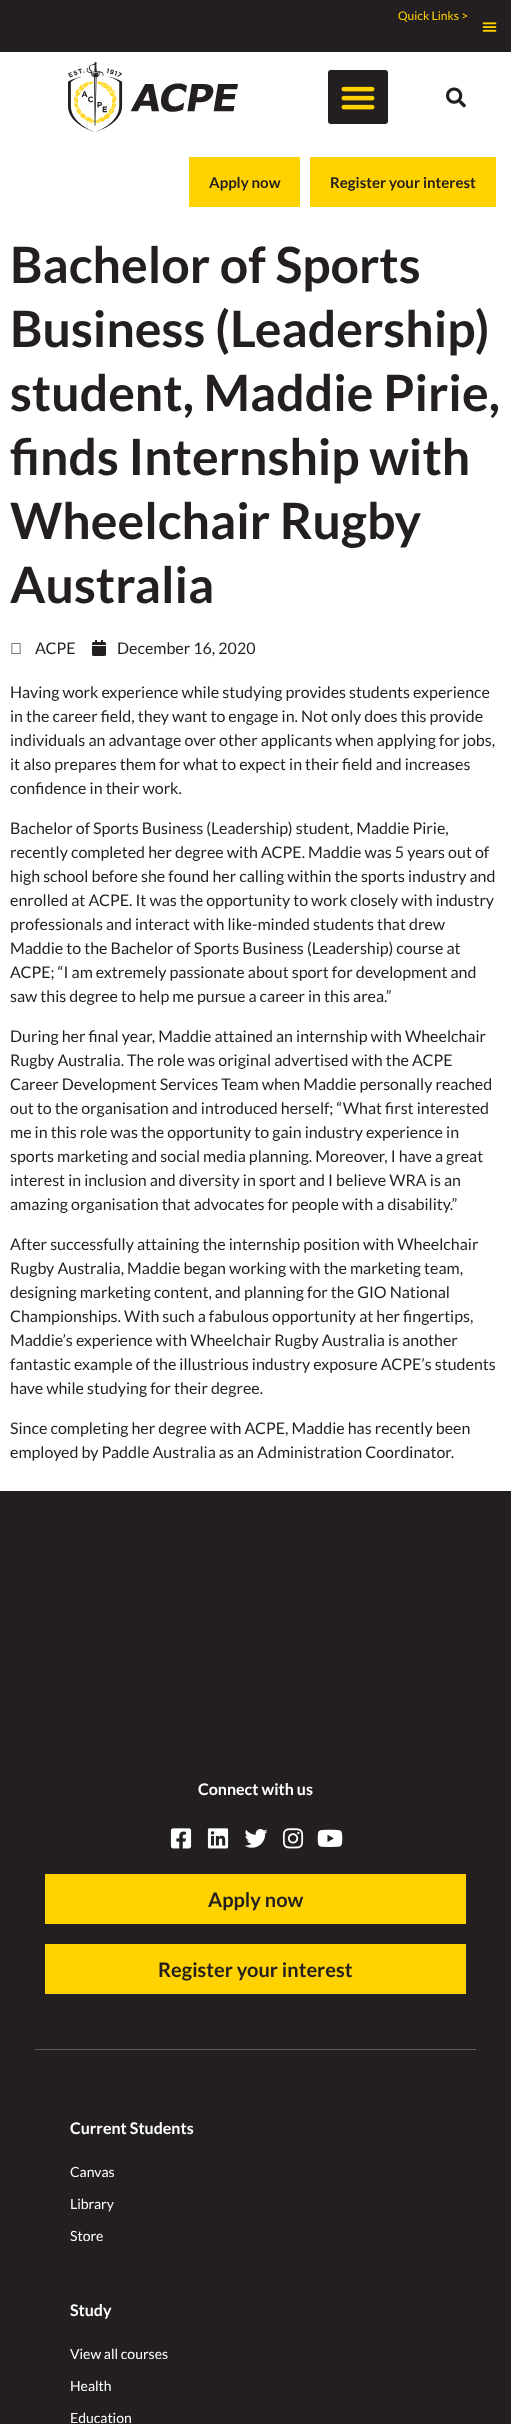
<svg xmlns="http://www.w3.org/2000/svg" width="511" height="2424">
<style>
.a{font:12px Lato;fill:#ffd200}
.b{font:bold 15px Lato;fill:#231f20}
.c{font:bold 50px Lato;fill:#231f20}
.d{font:16px Lato;fill:#231f20}
.e{font:bold 16px Lato;fill:#fff}
.f{font:bold 20px Lato;fill:#231f20}
.g{font:14px Lato;fill:#fff}
</style>
<rect width="100%" height="100%" fill="#fff"/>
<path fill="#231f20" d="M0 0h511v52H0z"/>
<image href="1.png" x="482" y="22" width="15" height="10"/>
<image href="2.png" x="68" y="62" width="170" height="70"/>
<rect fill="#231f20" x="328" y="70" width="60" height="54" rx="3"/>
<image href="3.png" x="341" y="86" width="34" height="24"/>
<image href="4.png" x="446" y="87" width="20" height="21"/>
<path fill="#ffd200" d="M189 157h111v50H189z"/>
<path fill="#ffd200" d="M310 157h186v50H310z"/>
<image href="5.png" x="11" y="643" width="10" height="11"/>
<image href="6.png" x="92" y="640" width="14" height="16"/>
<path fill="#231f20" d="M0 1491h511v933H0z"/>
<image href="7.png" x="170" y="1828" width="22" height="21"/>
<image href="8.png" x="207" y="1828" width="22" height="21"/>
<image href="9.png" x="244" y="1829" width="24" height="19"/>
<image href="10.png" x="282" y="1828" width="22" height="21"/>
<image href="11.png" x="317" y="1829" width="26" height="18"/>
<path fill="#ffd200" d="M45 1874h421v50H45z"/>
<path fill="#ffd200" d="M45 1944h421v50H45z"/>
<path fill="#5e5b5c" d="M35 2049h441v1H35z"/>
<text class="a" x="398" y="20">Quick Links &gt;</text>
<text class="b" x="209" y="188">Apply now</text>
<text class="b" x="330" y="188">Register your interest</text>
<text class="c" x="10" y="283">Bachelor of Sports</text>
<text class="c" x="10" y="347">Business (Leadership)</text>
<text class="c" x="10" y="411">student, Maddie Pirie,</text>
<text class="c" x="10" y="475">finds Internship with</text>
<text class="c" x="10" y="539">Wheelchair Rugby</text>
<text class="c" x="10" y="603">Australia</text>
<text class="d" x="35" y="654">ACPE</text>
<text class="d" x="117" y="654">December 16, 2020</text>
<text class="d" x="10" y="698">Having work experience while studying provides students experience</text>
<text class="d" x="10" y="722">in the career field, they want to engage in. Not only does this provide</text>
<text class="d" x="10" y="746">individuals an advantage over other applicants when applying for jobs,</text>
<text class="d" x="10" y="770">it also prepares them for what to expect in their field and increases</text>
<text class="d" x="10" y="794">confidence in their work.</text>
<text class="d" x="10" y="834">Bachelor of Sports Business (Leadership) student, Maddie Pirie,</text>
<text class="d" x="10" y="858">recently completed her degree with ACPE. Maddie was 5 years out of</text>
<text class="d" x="10" y="882">high school before she found her calling within the sports industry and</text>
<text class="d" x="10" y="906">enrolled at ACPE. It was the opportunity to work closely with industry</text>
<text class="d" x="10" y="930">professionals and interact with like-minded students that drew</text>
<text class="d" x="10" y="954">Maddie to the Bachelor of Sports Business (Leadership) course at</text>
<text class="d" x="10" y="978">ACPE; “I am extremely passionate about sport for development and</text>
<text class="d" x="10" y="1002">saw this degree to help me pursue a career in this area.”</text>
<text class="d" x="10" y="1042">During her final year, Maddie attained an internship with Wheelchair</text>
<text class="d" x="10" y="1066">Rugby Australia. The role was original advertised with the ACPE</text>
<text class="d" x="10" y="1090">Career Development Services Team when Maddie personally reached</text>
<text class="d" x="10" y="1114">out to the organisation and introduced herself; “What first interested</text>
<text class="d" x="10" y="1138">me in this role was the opportunity to gain industry experience in</text>
<text class="d" x="10" y="1162">sports marketing and social media planning. Moreover, I have a great</text>
<text class="d" x="10" y="1186">interest in inclusion and diversity in sport and I believe WRA is an</text>
<text class="d" x="10" y="1210">amazing organisation that advocates for people with a disability.”</text>
<text class="d" x="10" y="1250">After successfully attaining the internship position with Wheelchair</text>
<text class="d" x="10" y="1274">Rugby Australia, Maddie began working with the marketing team,</text>
<text class="d" x="10" y="1298">designing marketing content, and planning for the GIO National</text>
<text class="d" x="10" y="1322">Championships. With such a fabulous opportunity at her fingertips,</text>
<text class="d" x="10" y="1346">Maddie’s experience with Wheelchair Rugby Australia is another</text>
<text class="d" x="10" y="1370">fantastic example of the illustrious industry exposure ACPE’s students</text>
<text class="d" x="10" y="1394">have while studying for their degree.</text>
<text class="d" x="10" y="1434">Since completing her degree with ACPE, Maddie has recently been</text>
<text class="d" x="10" y="1458">employed by Paddle Australia as an Administration Coordinator.</text>
<text class="e" x="198" y="1795">Connect with us</text>
<text class="f" x="208" y="1907">Apply now</text>
<text class="f" x="158" y="1977">Register your interest</text>
<text class="e" x="70" y="2134">Current Students</text>
<text class="g" x="70" y="2177">Canvas</text>
<text class="g" x="70" y="2209">Library</text>
<text class="g" x="70" y="2241">Store</text>
<text class="e" x="70" y="2316">Study</text>
<text class="g" x="70" y="2359">View all courses</text>
<text class="g" x="70" y="2391">Health</text>
<text class="g" x="70" y="2423">Education</text>
</svg>
